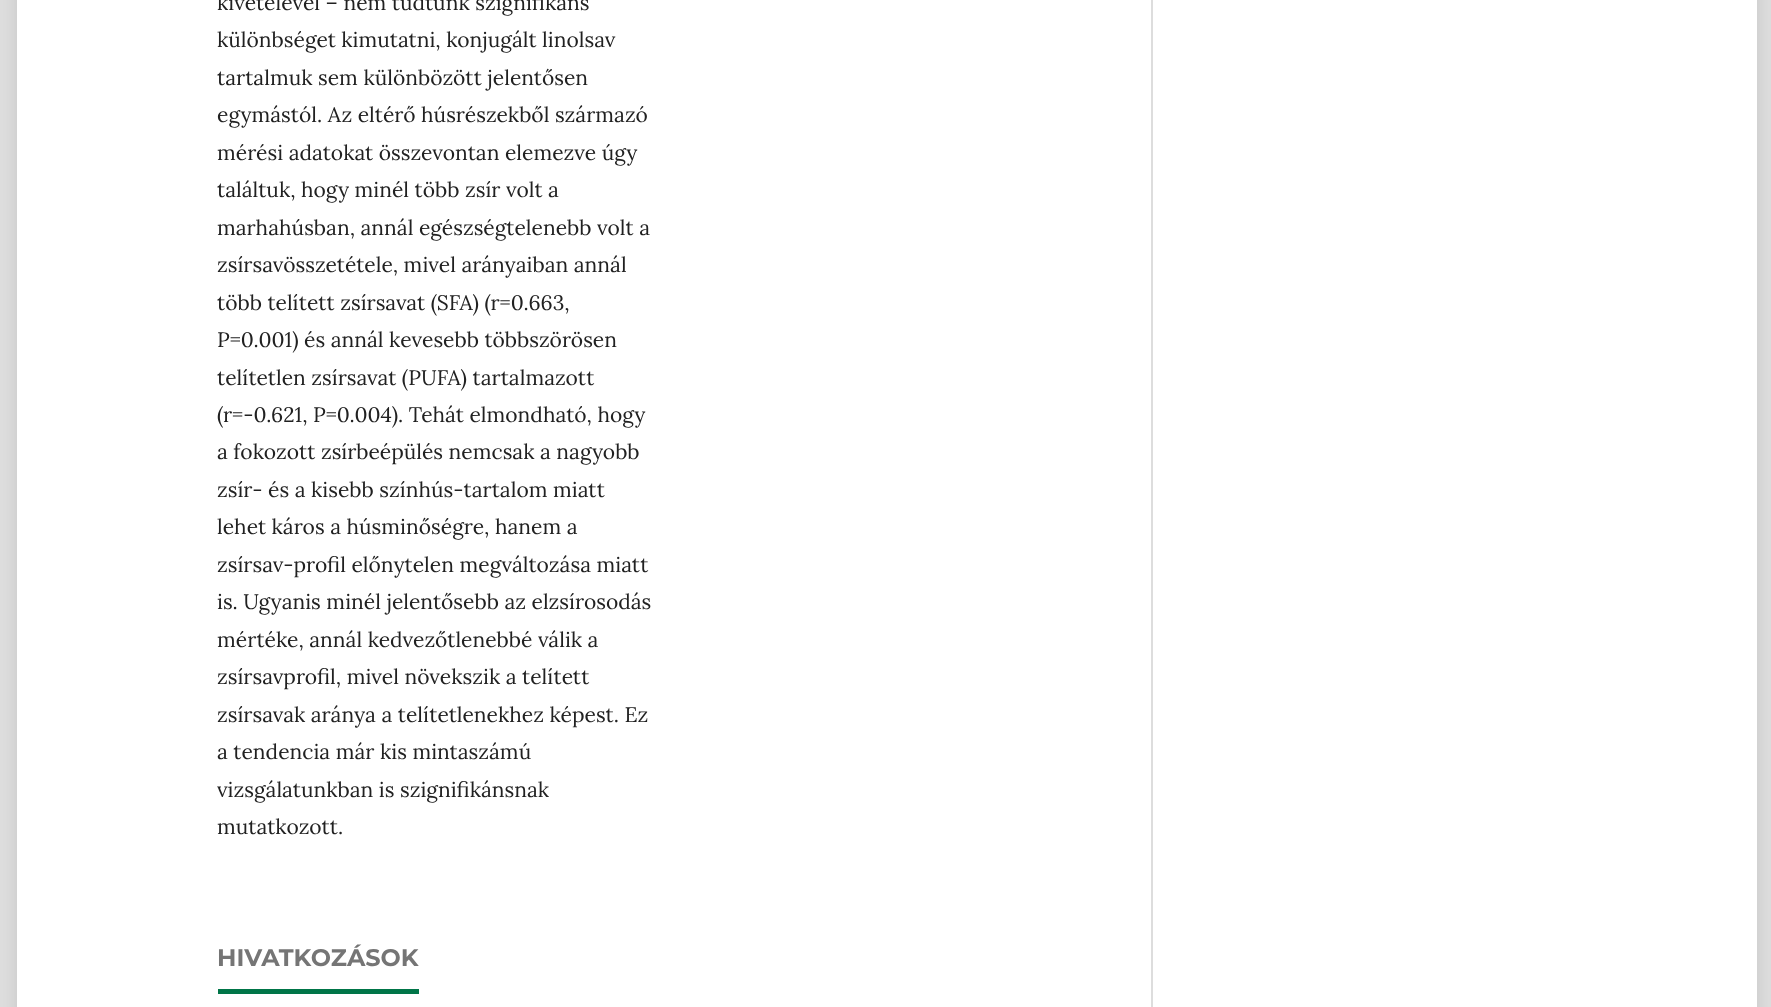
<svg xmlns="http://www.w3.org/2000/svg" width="1771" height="1007">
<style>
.a{font:21px Lora;fill:#212121}
.b{font:bold 24px Montserrat;fill:#757575}
</style>
<rect width="100%" height="100%" fill="#ddd"/>
<path fill="#0000001a" filter="blur(7.5px)" d="M17 -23h1740v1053H17z"/>
<path fill="#fff" d="M17 0h1740v1007H17z"/>
<path fill="#007548" d="M218 989h201v5H218z"/>
<path fill="#ddd" d="M1151 0h2v1007H1151z"/>
<text class="a" x="217" y="10">kivételével – nem tudtunk szignifikáns</text>
<text class="a" x="217" y="47">különbséget kimutatni, konjugált linolsav</text>
<text class="a" x="217" y="85">tartalmuk sem különbözött jelentősen</text>
<text class="a" x="217" y="122">egymástól. Az eltérő húsrészekből származó</text>
<text class="a" x="217" y="160">mérési adatokat összevontan elemezve úgy</text>
<text class="a" x="217" y="197">találtuk, hogy minél több zsír volt a</text>
<text class="a" x="217" y="235">marhahúsban, annál egészségtelenebb volt a</text>
<text class="a" x="217" y="272">zsírsavösszetétele, mivel arányaiban annál</text>
<text class="a" x="217" y="310">több telített zsírsavat (SFA) (r=0.663,</text>
<text class="a" x="217" y="347">P=0.001) és annál kevesebb többszörösen</text>
<text class="a" x="217" y="385">telítetlen zsírsavat (PUFA) tartalmazott</text>
<text class="a" x="217" y="422">(r=-0.621, P=0.004). Tehát elmondható, hogy</text>
<text class="a" x="217" y="459">a fokozott zsírbeépülés nemcsak a nagyobb</text>
<text class="a" x="217" y="497">zsír- és a kisebb színhús-tartalom miatt</text>
<text class="a" x="217" y="534">lehet káros a húsminőségre, hanem a</text>
<text class="a" x="217" y="572">zsírsav-profil előnytelen megváltozása miatt</text>
<text class="a" x="217" y="609">is. Ugyanis minél jelentősebb az elzsírosodás</text>
<text class="a" x="217" y="647">mértéke, annál kedvezőtlenebbé válik a</text>
<text class="a" x="217" y="684">zsírsavprofil, mivel növekszik a telített</text>
<text class="a" x="217" y="722">zsírsavak aránya a telítetlenekhez képest. Ez</text>
<text class="a" x="217" y="759">a tendencia már kis mintaszámú</text>
<text class="a" x="217" y="797">vizsgálatunkban is szignifikánsnak</text>
<text class="a" x="217" y="834">mutatkozott.</text>
<text class="b" x="217" y="966">HIVATKOZÁSOK</text>
</svg>
